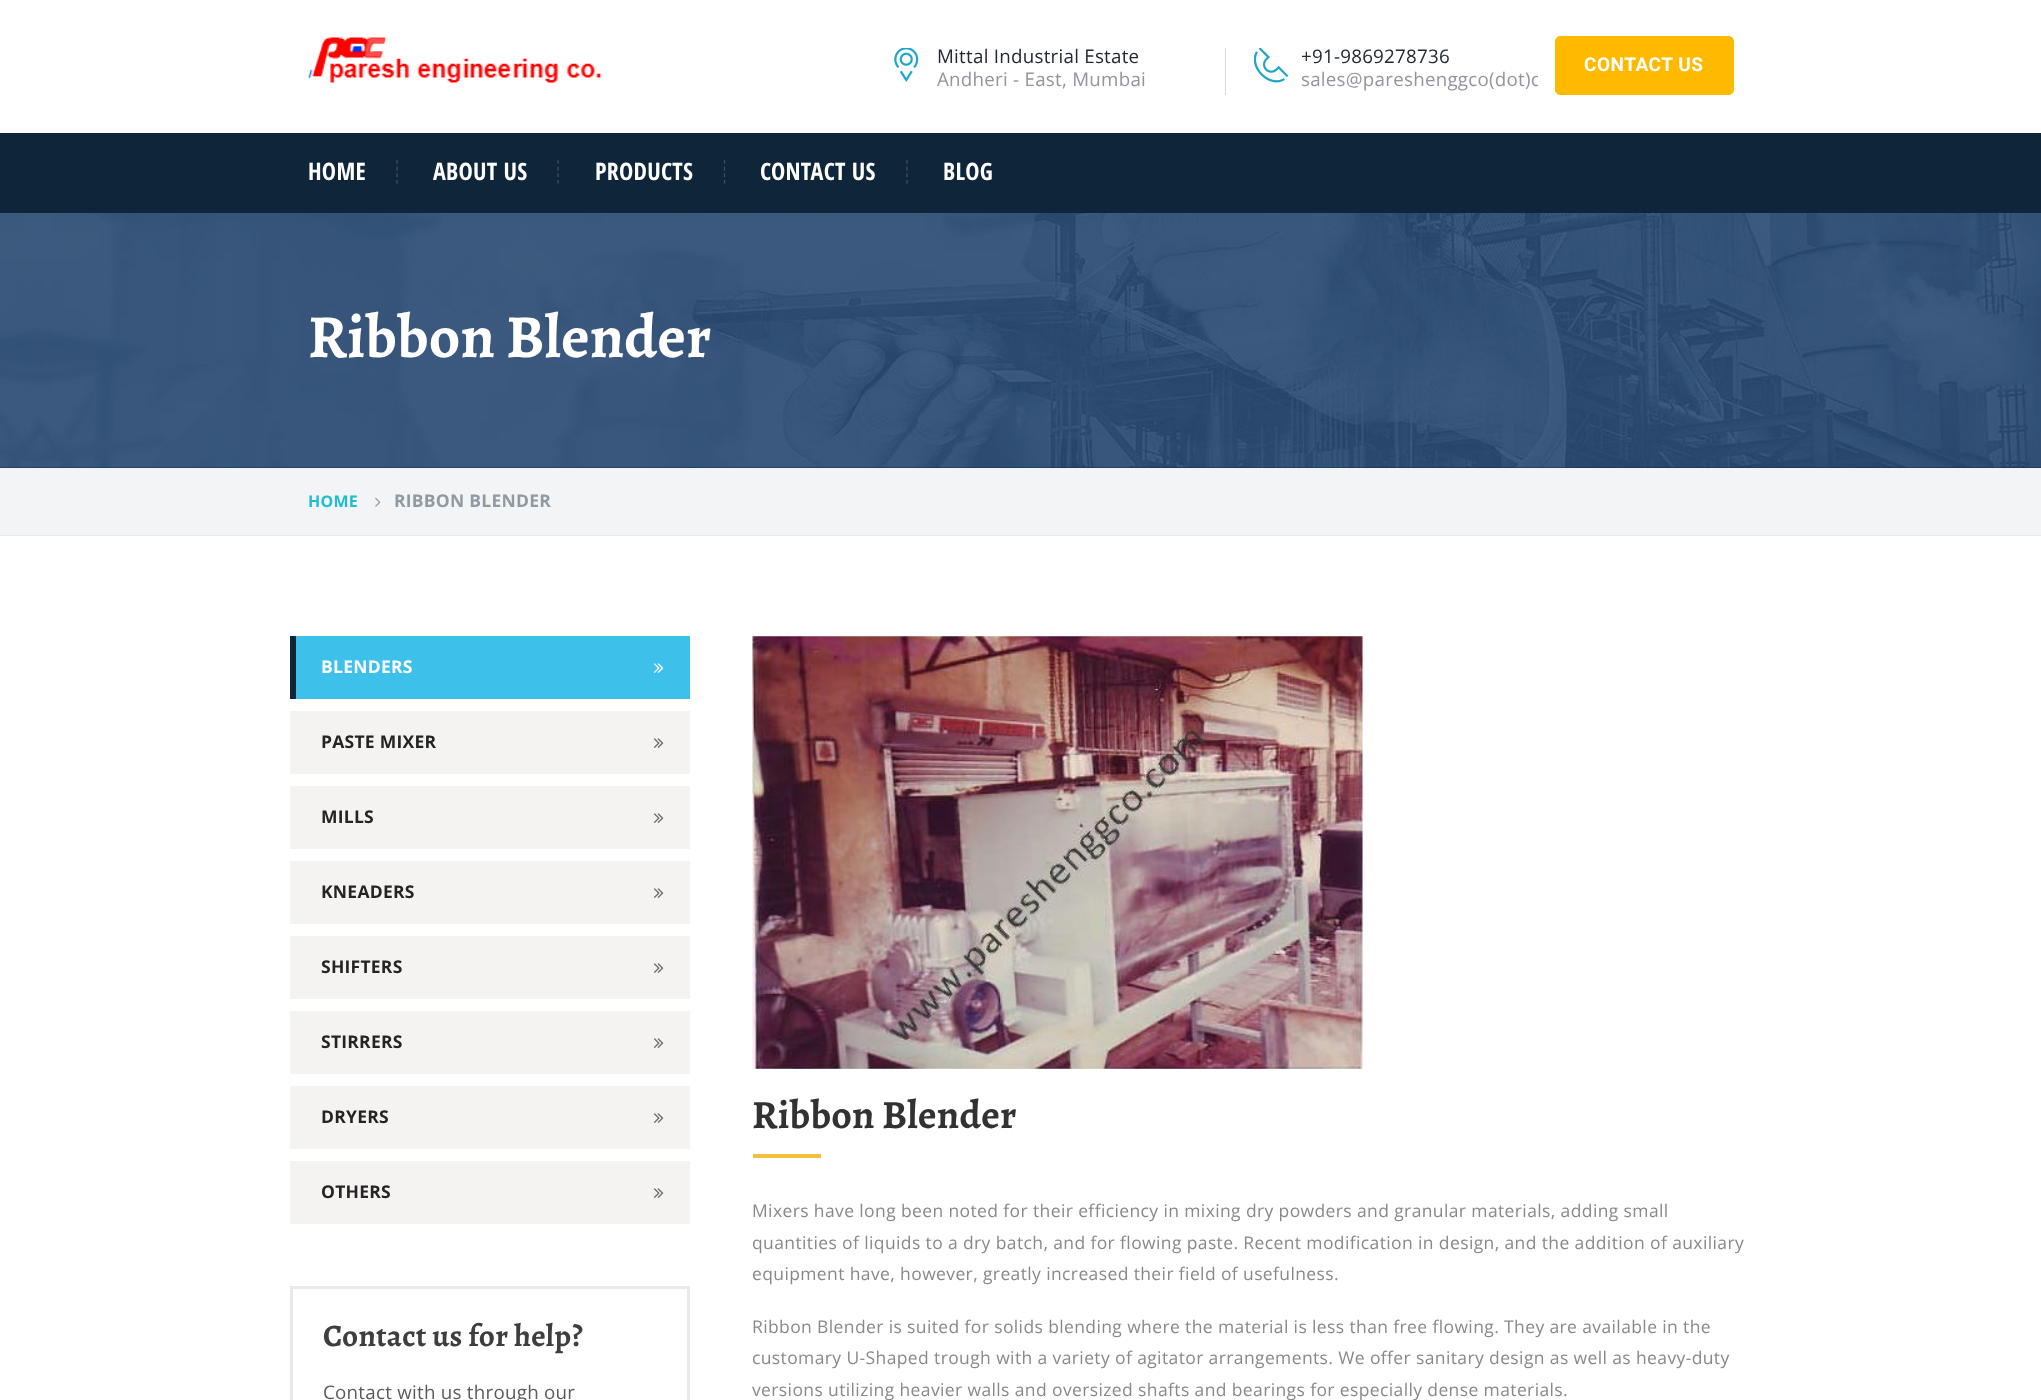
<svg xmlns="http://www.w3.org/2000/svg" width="2041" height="1400">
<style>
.a{font:18.75px Open Sans;letter-spacing:0.25px;fill:#232932}
.b{font:18.75px Open Sans;letter-spacing:0.25px;fill:#9692a0}
.c{font:bold 19px Roboto;letter-spacing:0.5px;fill:#fff}
.d{font:bold 24px Open Sans Condensed;letter-spacing:0.25px;fill:#fff}
.e{font:bold 61.25px Alegreya;letter-spacing:0.25px;fill:#fff}
.f{font:bold 16px Open Sans;letter-spacing:0.25px;fill:#20bcd4}
.g{font:bold 17.5px Open Sans;letter-spacing:0.25px;fill:#909aa2}
.h{font:bold 17.5px Open Sans;letter-spacing:0.25px;fill:#fff}
.i{font:bold 17.5px Open Sans;letter-spacing:0.25px;fill:#242424}
.j{font:bold 31.25px Alegreya;letter-spacing:0.25px;fill:#3e3e3e}
.k{font:18.75px Open Sans;letter-spacing:0.25px;fill:#5b5b5b}
.l{font:bold 40px Alegreya;letter-spacing:0.25px;fill:#323232}
.m{font:17.5px Open Sans;letter-spacing:0.38px;fill:#898989}
</style>
<defs>
<clipPath id="clip1"><path d="M1301 48h237v47H1301z"/></clipPath>
</defs>
<rect width="100%" height="100%" fill="#fff"/>
<image href="1.png" x="308" y="37" width="294" height="46"/>
<path fill="#d8d8d8" d="M1225 48h1v47H1225z"/>
<image href="2.png" x="894" y="48" width="25" height="34"/>
<image href="3.png" x="1254" y="48" width="35" height="35"/>
<rect fill="#ffba00" stroke="#ffba00" x="1555.5" y="36.5" width="178" height="58" rx="4.5"/>
<path fill="#0f263a" d="M0 133h2041v80H0z"/>
<path fill="none" stroke="#3f5262" stroke-width="1.2" stroke-dasharray="3.75 2.91" d="M397 160v24"/>
<path fill="none" stroke="#3f5262" stroke-width="1.2" stroke-dasharray="3.75 2.91" d="M558 160v24"/>
<path fill="none" stroke="#3f5262" stroke-width="1.2" stroke-dasharray="3.75 2.91" d="M724.5 160v24"/>
<path fill="none" stroke="#3f5262" stroke-width="1.2" stroke-dasharray="3.75 2.91" d="M907 160v24"/>
<path fill="#13314c" d="M0 467h2041v1H0z"/>
<image href="4.png" x="0" y="213" width="2041" height="255"/>
<path fill="#f2f4f6" d="M0 468h2041v67H0z"/>
<path fill="#e6e8e9" d="M0 535h2041v1H0z"/>
<image href="5.png" x="375" y="497" width="6" height="10"/>
<path fill="#3dc1ea" d="M296 636h394v63H296z"/>
<path fill="#0f263a" d="M290 636h6v63H290z"/>
<image href="6.png" x="653" y="663" width="11" height="10"/>
<path fill="#f5f2f2" d="M290 711h400v63H290z"/>
<image href="7.png" x="653" y="738" width="11" height="10"/>
<path fill="#f5f2f2" d="M290 786h400v63H290z"/>
<image href="7.png" x="653" y="813" width="11" height="10"/>
<path fill="#f5f2f2" d="M290 861h400v63H290z"/>
<image href="7.png" x="653" y="888" width="11" height="10"/>
<path fill="#f5f2f2" d="M290 936h400v63H290z"/>
<image href="7.png" x="653" y="963" width="11" height="10"/>
<path fill="#f5f2f2" d="M290 1011h400v63H290z"/>
<image href="7.png" x="653" y="1038" width="11" height="10"/>
<path fill="#f5f2f2" d="M290 1086h400v63H290z"/>
<image href="7.png" x="653" y="1113" width="11" height="10"/>
<path fill="#f5f2f2" d="M290 1161h400v63H290z"/>
<image href="7.png" x="653" y="1188" width="11" height="10"/>
<path fill="none" stroke="#e9e9e9" stroke-width="3" d="M291.5 1287.5h397v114H291.5z"/>
<image href="8.png" x="752" y="636" width="611" height="433"/>
<path fill="#f7be3d" d="M753 1154h68v4H753z"/>
<text class="a" x="937" y="63">Mittal Industrial Estate</text>
<text class="b" x="937" y="86">Andheri - East, Mumbai</text>
<text class="a" x="1301" y="63">+91-9869278736</text>
<g clip-path="url(#clip1)">
<text class="b" x="1301" y="86">sales@pareshenggco(dot)c</text>
</g>
<text class="c" x="1584" y="71">CONTACT US</text>
<text class="d" x="308" y="180">HOME</text>
<text class="d" x="433" y="180">ABOUT US</text>
<text class="d" x="595" y="180">PRODUCTS</text>
<text class="d" x="760" y="180">CONTACT US</text>
<text class="d" x="943" y="180">BLOG</text>
<text class="e" x="308" y="357">Ribbon Blender</text>
<text class="f" x="308" y="507">HOME</text>
<text class="g" x="394" y="507">RIBBON BLENDER</text>
<text class="h" x="321" y="673">BLENDERS</text>
<text class="i" x="321" y="748">PASTE MIXER</text>
<text class="i" x="321" y="823">MILLS</text>
<text class="i" x="321" y="898">KNEADERS</text>
<text class="i" x="321" y="973">SHIFTERS</text>
<text class="i" x="321" y="1048">STIRRERS</text>
<text class="i" x="321" y="1123">DRYERS</text>
<text class="i" x="321" y="1198">OTHERS</text>
<text class="j" x="323" y="1346">Contact us for help?</text>
<text class="k" x="323" y="1399">Contact with us through our</text>
<text class="l" x="752" y="1128">Ribbon Blender</text>
<text class="m" x="752" y="1217">Mixers have long been noted for their efficiency in mixing dry powders and granular materials, adding small</text>
<text class="m" x="752" y="1249">quantities of liquids to a dry batch, and for flowing paste. Recent modification in design, and the addition of auxiliary</text>
<text class="m" x="752" y="1280">equipment have, however, greatly increased their field of usefulness.</text>
<text class="m" x="752" y="1333">Ribbon Blender is suited for solids blending where the material is less than free flowing. They are available in the</text>
<text class="m" x="752" y="1364">customary U-Shaped trough with a variety of agitator arrangements. We offer sanitary design as well as heavy-duty</text>
<text class="m" x="752" y="1396">versions utilizing heavier walls and oversized shafts and bearings for especially dense materials.</text>
</svg>
